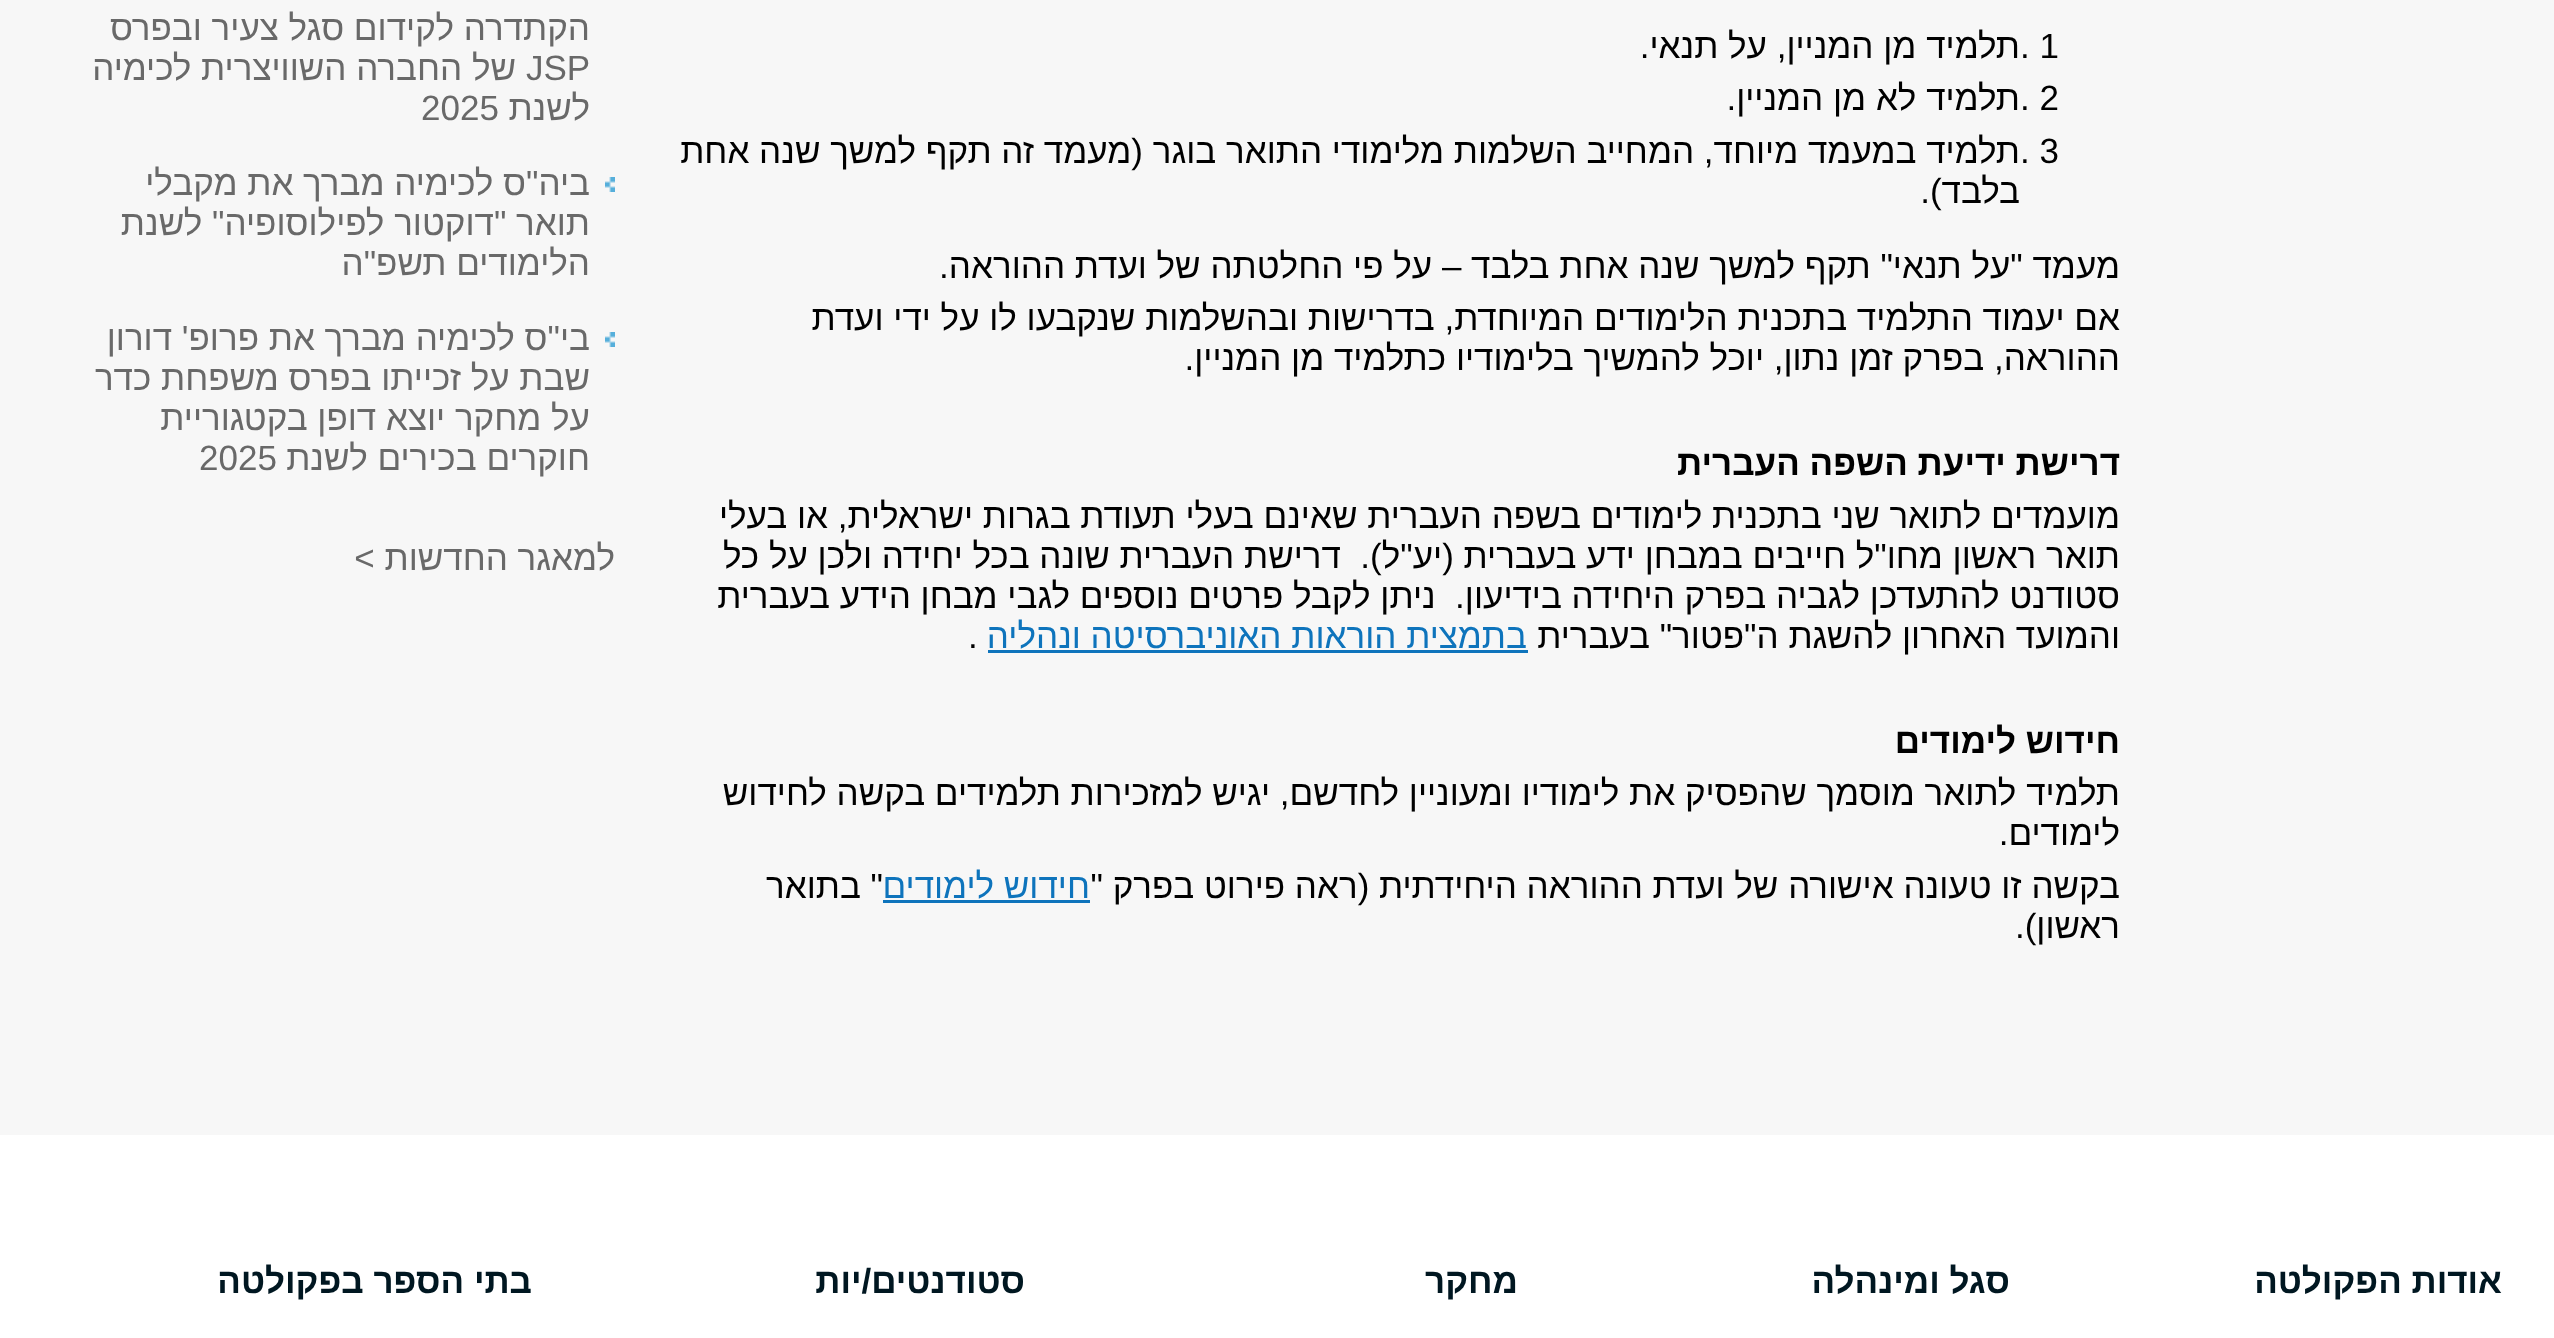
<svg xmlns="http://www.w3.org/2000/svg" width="2554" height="1338">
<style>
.a{font:35px Liberation Sans;fill:#000}
.b{font:35px Liberation Sans;direction:rtl;fill:#000}
.c{font:bold 35px Liberation Sans;direction:rtl;fill:#000}
.d{font:35px Liberation Sans;direction:rtl;fill:#0e74bc}
.e{font:35px Liberation Sans;direction:rtl;fill:#696969}
.f{font:35px Liberation Sans;fill:#696969}
.g{font:bold 35px Liberation Sans;direction:rtl;fill:#001721}
</style>
<rect width="100%" height="100%" fill="#f7f7f7"/>
<path fill="#0e74bc" d="M988 650h540v3H988z"/>
<path fill="#0e74bc" d="M883 900h207v3H883z"/>
<image href="1.png" x="605" y="177" width="10" height="15"/>
<image href="1.png" x="605" y="332" width="10" height="15"/>
<path fill="#fff" d="M0 1135h2554v203H0z"/>
<text class="a" x="2020" y="58">. 1</text>
<text class="b" x="2020" y="58">תלמיד מן המניין, על תנאי.</text>
<text class="a" x="2020" y="110">. 2</text>
<text class="b" x="2020" y="110">תלמיד לא מן המניין.</text>
<text class="a" x="2020" y="163">. 3</text>
<text class="b" x="2020" y="163">תלמיד במעמד מיוחד, המחייב השלמות מלימודי התואר בוגר (מעמד זה תקף למשך שנה אחת</text>
<text class="b" x="2020" y="203">בלבד).</text>
<text class="b" x="2120" y="278">מעמד "על תנאי" תקף למשך שנה אחת בלבד – על פי החלטתה של ועדת ההוראה.</text>
<text class="b" x="2120" y="330">אם יעמוד התלמיד בתכנית הלימודים המיוחדת, בדרישות ובהשלמות שנקבעו לו על ידי ועדת</text>
<text class="b" x="2120" y="370">ההוראה, בפרק זמן נתון, יוכל להמשיך בלימודיו כתלמיד מן המניין.</text>
<text class="c" x="2120" y="475">דרישת ידיעת השפה העברית</text>
<text class="b" x="2120" y="528">מועמדים לתואר שני בתכנית לימודים בשפה העברית שאינם בעלי תעודת בגרות ישראלית, או בעלי</text>
<text class="b" xml:space="preserve" x="2120" y="568">תואר ראשון מחו"ל חייבים במבחן ידע בעברית (יע"ל).  דרישת העברית שונה בכל יחידה ולכן על כל</text>
<text class="b" xml:space="preserve" x="2120" y="608">סטודנט להתעדכן לגביה בפרק היחידה בידיעון.  ניתן לקבל פרטים נוספים לגבי מבחן הידע בעברית</text>
<text class="b" x="2120" y="648">והמועד האחרון להשגת ה"פטור" בעברית</text>
<text class="d" x="1527" y="648">בתמצית הוראות האוניברסיטה ונהליה</text>
<text class="a" x="968" y="648">.</text>
<text class="c" x="2120" y="753">חידוש לימודים</text>
<text class="b" x="2120" y="805">תלמיד לתואר מוסמך שהפסיק את לימודיו ומעוניין לחדשם, יגיש למזכירות תלמידים בקשה לחידוש</text>
<text class="b" x="2120" y="845">לימודים.</text>
<text class="b" x="2120" y="898">בקשה זו טעונה אישורה של ועדת ההוראה היחידתית (ראה פירוט בפרק "</text>
<text class="d" x="1090" y="898">חידוש לימודים</text>
<text class="b" x="883" y="898">" בתואר</text>
<text class="b" x="2120" y="938">ראשון).</text>
<text class="e" x="590" y="40">הקתדרה לקידום סגל צעיר ובפרס</text>
<text class="f" x="526" y="80">JSP</text>
<text class="e" x="516" y="80">של החברה השוויצרית לכימיה</text>
<text class="e" x="590" y="120">לשנת</text>
<text class="f" x="421" y="120">2025</text>
<text class="e" x="590" y="195">ביה"ס לכימיה מברך את מקבלי</text>
<text class="e" x="590" y="235">תואר "דוקטור לפילוסופיה" לשנת</text>
<text class="e" x="590" y="275">הלימודים תשפ"ה</text>
<text class="e" x="590" y="350">בי"ס לכימיה מברך את פרופ' דורון</text>
<text class="e" x="590" y="390">שבת על זכייתו בפרס משפחת כדר</text>
<text class="e" x="590" y="430">על מחקר יוצא דופן בקטגוריית</text>
<text class="e" x="590" y="470">חוקרים בכירים לשנת</text>
<text class="f" x="199" y="470">2025</text>
<text class="e" x="615" y="570">למאגר החדשות &gt;</text>
<text class="g" x="2502" y="1293">אודות הפקולטה</text>
<text class="g" x="2010" y="1293">סגל ומינהלה</text>
<text class="g" x="1518" y="1293">מחקר</text>
<text class="g" x="1025" y="1293">סטודנטים/יות</text>
<text class="g" x="532" y="1293">בתי הספר בפקולטה</text>
</svg>
